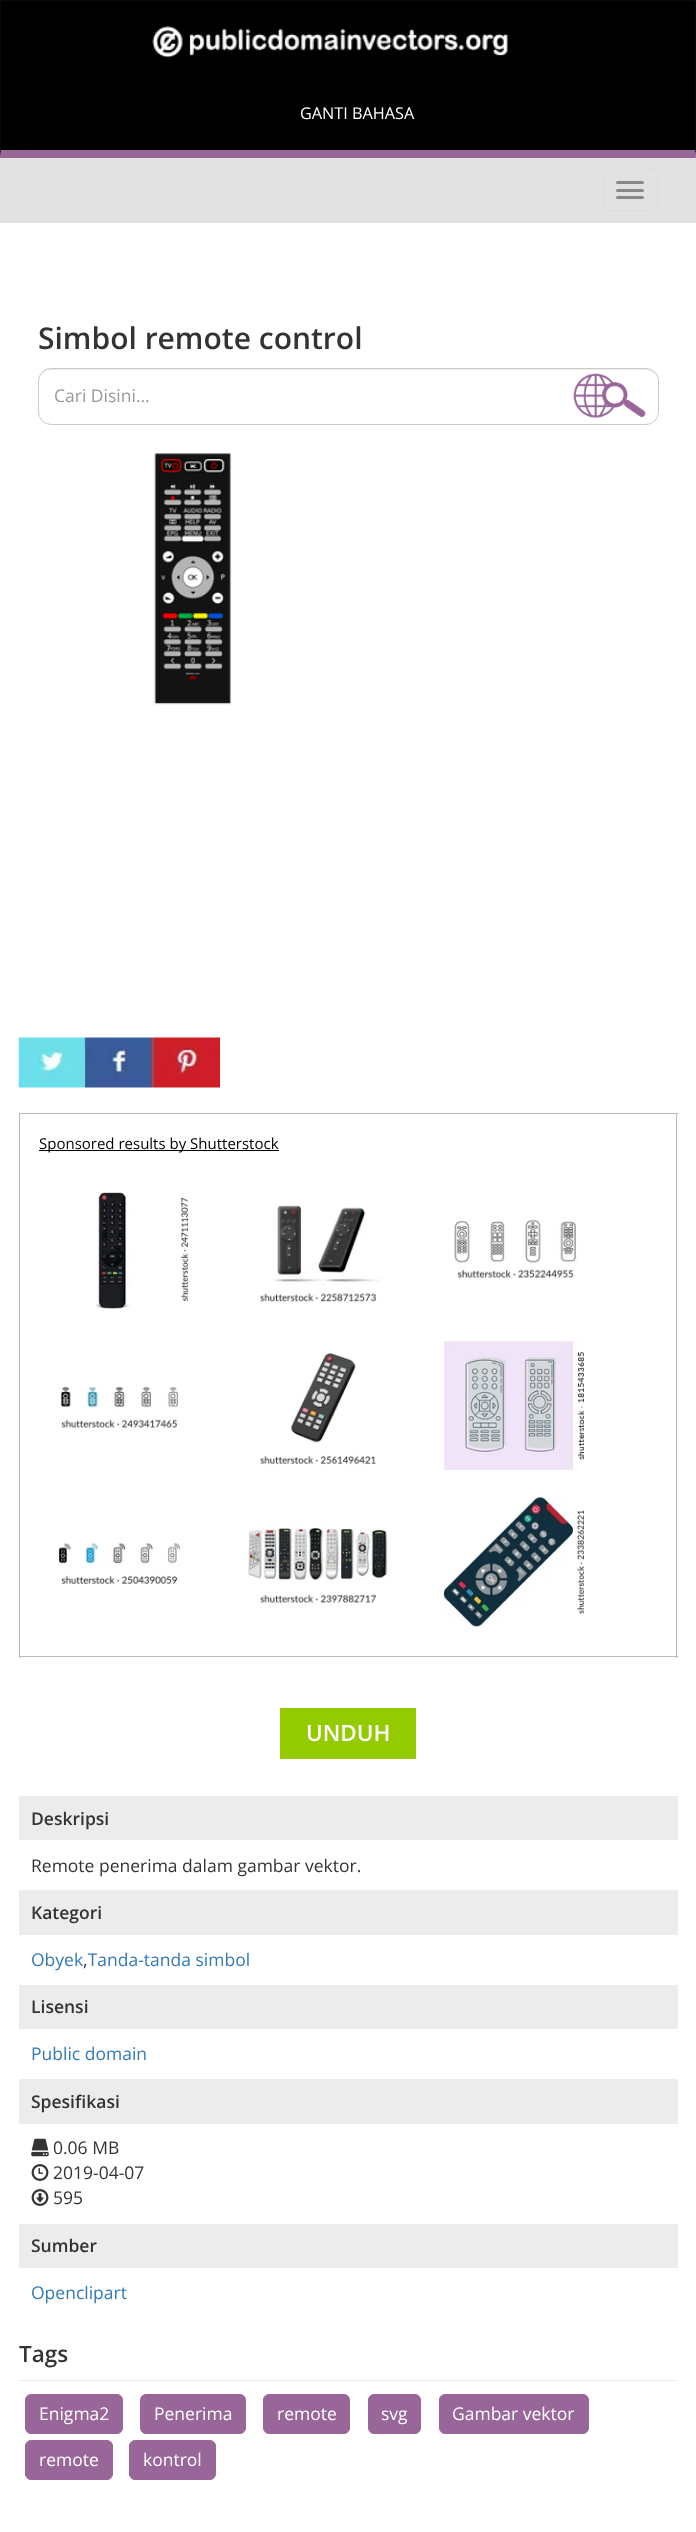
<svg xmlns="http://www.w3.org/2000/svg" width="696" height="2532">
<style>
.a{font:16.25px Open Sans;fill:#fff}
.b{font:600 30px Open Sans;fill:#333}
.c{font:17.5px Open Sans;fill:#999}
.d{font:15px Open Sans;fill:#000}
.e{font:600 22.5px Open Sans;fill:#fff}
.f{font:600 17.5px Open Sans;fill:#333}
.g{font:17.5px Open Sans;fill:#333}
.h{font:17.5px Open Sans;fill:#337ab7}
.i{font:600 22.5px Open Sans;fill:#333}
.j{font:17.5px Open Sans;fill:#fff}
</style>
<rect width="100%" height="100%" fill="#fff"/>
<path fill="#000" d="M1 1h694v149H1z"/>
<path fill="#080808" d="M0 0h696v1H0z"/>
<path fill="#080808" d="M696 0v158l-1-8v-149z"/>
<path fill="#969" d="M696 158h-696l1-8h694z"/>
<path fill="#080808" d="M0 158v-158l1 1v149z"/>
<image href="1.png" x="152" y="26" width="356" height="32"/>
<path fill="#e2e2e2" d="M0 158h696v65H0z"/>
<rect fill="none" stroke="#ddd" x="603.5" y="169.5" width="54" height="41" rx="4.5"/>
<rect fill="#888" x="616" y="181" width="28" height="3" rx="1.5"/>
<rect fill="#888" x="616" y="189" width="28" height="3" rx="1.5"/>
<rect fill="#888" x="616" y="196" width="28" height="3" rx="1.5"/>
<image href="2.png" x="573" y="373" width="73" height="45"/>
<path fill="#ececec" d="M50 370h596c6 0 12 5 12 11c0-6-4-12-11-12h-597c-7 0-11 6-11 12c0-6 5-11 11-11z"/>
<rect fill="none" stroke="#ccc" x="38.5" y="368.5" width="620" height="56" rx="12.5"/>
<image href="3.png" x="154" y="453" width="78" height="252"/>
<image href="4.png" x="18" y="1037" width="202" height="51"/>
<path fill="#bbb" d="M19 1113h659v1H19z"/>
<path fill="#bbb" d="M676 1113h1v545H676z"/>
<path fill="#bbb" d="M19 1113h1v62H19z"/>
<path fill="#000" d="M39 1150h240v1H39z"/>
<path fill="#bbb" d="M19 1656h659v1H19z"/>
<path fill="#bbb" d="M19 1175h1v483H19z"/>
<image href="5.png" x="96" y="1192" width="93" height="117"/>
<image href="6.png" x="260" y="1204" width="121" height="99"/>
<image href="7.png" x="454" y="1219" width="124" height="59"/>
<image href="8.png" x="59" y="1386" width="119" height="42"/>
<image href="9.png" x="260" y="1350" width="116" height="116"/>
<image href="10.png" x="444" y="1341" width="141" height="129"/>
<image href="11.png" x="59" y="1542" width="122" height="43"/>
<image href="12.png" x="246" y="1525" width="142" height="80"/>
<image href="13.png" x="443" y="1497" width="142" height="130"/>
<path fill="#94cb00" d="M280 1708h136v51H280z"/>
<path fill="#ececec" d="M19 1796h659v44H19z"/>
<path fill="#ececec" d="M19 1890h659v45H19z"/>
<path fill="#ececec" d="M19 1985h659v44H19z"/>
<path fill="#ececec" d="M19 2079h659v45H19z"/>
<image href="14.png" x="31" y="2138" width="18" height="19"/>
<image href="15.png" x="31" y="2164" width="18" height="17"/>
<image href="16.png" x="31" y="2189" width="18" height="17"/>
<path fill="#ececec" d="M19 2224h659v44H19z"/>
<path fill="#ececec" d="M19 2380h659v1H19z"/>
<rect fill="#969" stroke="#969" x="25.5" y="2394.5" width="97" height="39" rx="5.5"/>
<rect fill="#969" stroke="#969" x="140.5" y="2394.5" width="105" height="39" rx="5.5"/>
<rect fill="#969" stroke="#969" x="263.5" y="2394.5" width="86" height="39" rx="5.5"/>
<rect fill="#969" stroke="#969" x="368.5" y="2394.5" width="52" height="39" rx="5.5"/>
<rect fill="#969" stroke="#969" x="439.5" y="2394.5" width="149" height="39" rx="5.5"/>
<rect fill="#969" stroke="#969" x="25.5" y="2440.5" width="87" height="39" rx="5.5"/>
<rect fill="#969" stroke="#969" x="129.5" y="2440.5" width="86" height="39" rx="5.5"/>
<text class="a" x="300" y="119">GANTI BAHASA</text>
<text class="b" x="38" y="349">Simbol remote control</text>
<text class="c" x="54" y="402">Cari Disini…</text>
<text class="d" x="39" y="1149">Sponsored results by Shutterstock</text>
<text class="e" x="306" y="1741">UNDUH</text>
<text class="f" x="31" y="1825">Deskripsi</text>
<text class="g" x="31" y="1872">Remote penerima dalam gambar vektor.</text>
<text class="f" x="31" y="1919">Kategori</text>
<text class="h" x="31" y="1966">Obyek Tanda-tanda simbol</text>
<text class="g" x="83" y="1966">,</text>
<text class="f" x="31" y="2013">Lisensi</text>
<text class="h" x="31" y="2060">Public domain</text>
<text class="f" x="31" y="2108">Spesifikasi</text>
<text class="g" x="53" y="2154">0.06 MB</text>
<text class="g" x="53" y="2179">2019-04-07</text>
<text class="g" x="53" y="2204">595</text>
<text class="f" x="31" y="2252">Sumber</text>
<text class="h" x="31" y="2299">Openclipart</text>
<text class="i" x="19" y="2362">Tags</text>
<text class="j" x="39" y="2420">Enigma2</text>
<text class="j" x="154" y="2420">Penerima</text>
<text class="j" x="277" y="2420">remote</text>
<text class="j" x="381" y="2420">svg</text>
<text class="j" x="452" y="2420">Gambar vektor</text>
<text class="j" x="39" y="2466">remote</text>
<text class="j" x="143" y="2466">kontrol</text>
</svg>
